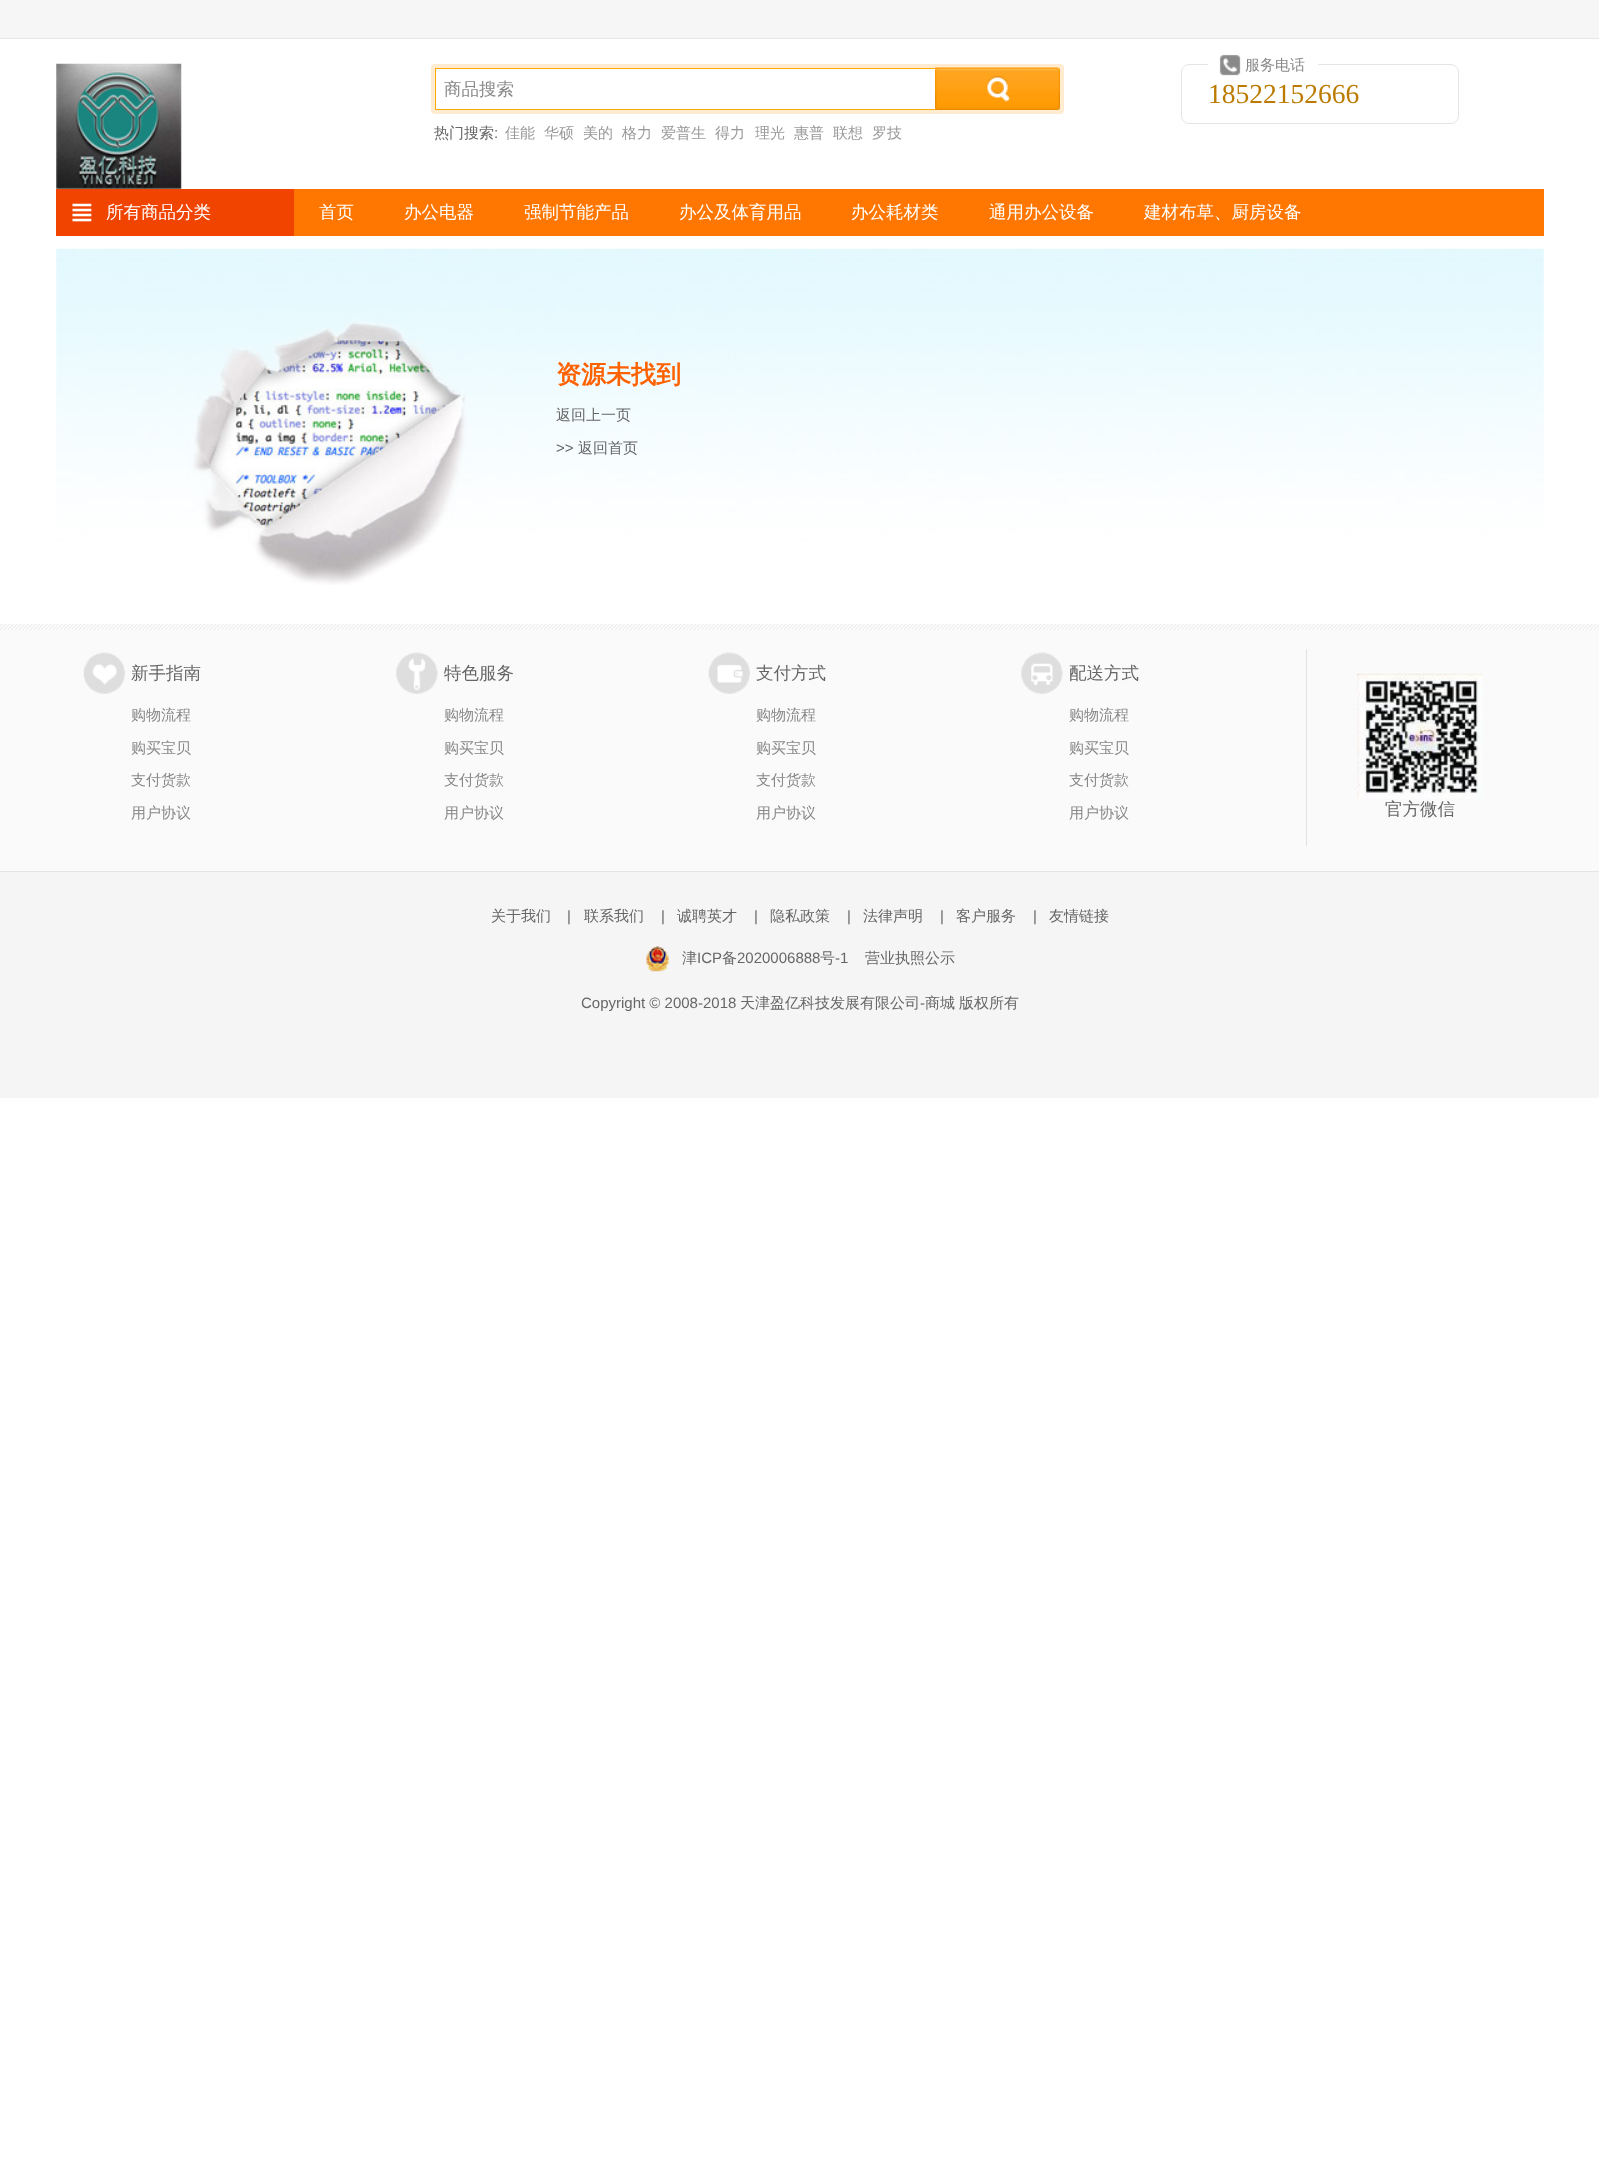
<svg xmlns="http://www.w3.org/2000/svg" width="1599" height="2158">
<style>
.a{font:500 17.5px WenQuanYi Zen Hei;fill:#888}
.b{font:500 15px WenQuanYi Zen Hei;fill:#666}
.c{font:15px Liberation Sans;fill:#666}
.d{font:500 15px WenQuanYi Zen Hei;fill:#999}
.e{font:500 15px WenQuanYi Zen Hei;fill:#888}
.f{font:27.5px Liberation Serif;fill:#bc7b00}
.g{font:500 17.5px WenQuanYi Zen Hei;fill:#fff}
.h{font:bold 25px WenQuanYi Zen Hei;fill:#fe6200}
.i{font:500 17.5px WenQuanYi Zen Hei;fill:#666}
</style>
<rect width="100%" height="100%" fill="#fff"/>
<path fill="#f6f6f6" d="M0 0h1599v38H0z"/>
<path fill="#e6e6e6" d="M0 38h1599v1H0z"/>
<image href="1.png" x="56" y="63" width="126" height="126"/>
<rect fill="none" stroke="#ffecd0" stroke-width="4" x="433" y="66" width="629" height="46" rx="2"/>
<path fill="#fa0" d="M435 68h500v1H435z"/>
<path fill="#fa0" d="M435 109h500v1H435z"/>
<path fill="#fa0" d="M435 68h1v42H435z"/>
<image href="2.png" x="935" y="67" width="125" height="43"/>
<rect fill="none" stroke="#e5e5e5" x="1181.5" y="64.5" width="277" height="59" rx="7.5"/>
<path fill="#fff" d="M1208 64h110v1H1208z"/>
<image href="3.png" x="1219" y="54" width="22" height="22"/>
<path fill="#f70" d="M294 189h1250v47H294z"/>
<path fill="#f04400" d="M56 189h238v47H56z"/>
<image href="4.png" x="72" y="203" width="20" height="19"/>
<image href="5.png" x="56" y="248" width="1488" height="337"/>
<path fill="#fafafa" d="M0 629h1599v242H0z"/>
<image href="6.png" x="0" y="624" width="1599" height="6"/>
<image href="7.png" x="83" y="652" width="42" height="42"/>
<image href="8.png" x="396" y="652" width="42" height="42"/>
<image href="9.png" x="708" y="652" width="42" height="42"/>
<image href="10.png" x="1021" y="652" width="42" height="42"/>
<path fill="#e1e1e1" d="M1306 649h1v197H1306z"/>
<image href="11.png" x="1357" y="673" width="126" height="126"/>
<path fill="#f5f5f5" d="M0 872h1599v226H0z"/>
<path fill="#e5e5e5" d="M0 871h1599v1H0z"/>
<image href="12.png" x="646" y="946" width="23" height="26"/>
<text class="a" x="444" y="95">商品搜索</text>
<text class="b" x="434" y="138">热门搜索</text>
<text class="c" x="494" y="138">:</text>
<text class="d" x="505" y="138">佳能</text>
<text class="d" x="544" y="138">华硕</text>
<text class="d" x="583" y="138">美的</text>
<text class="d" x="622" y="138">格力</text>
<text class="d" x="661" y="138">爱普生</text>
<text class="d" x="715" y="138">得力</text>
<text class="d" x="755" y="138">理光</text>
<text class="d" x="794" y="138">惠普</text>
<text class="d" x="833" y="138">联想</text>
<text class="d" x="872" y="138">罗技</text>
<text class="e" x="1245" y="70">服务电话</text>
<text class="f" x="1208" y="103">18522152666</text>
<text class="g" x="106" y="218">所有商品分类</text>
<text class="g" x="319" y="218">首页</text>
<text class="g" x="404" y="218">办公电器</text>
<text class="g" x="524" y="218">强制节能产品</text>
<text class="g" x="679" y="218">办公及体育用品</text>
<text class="g" x="851" y="218">办公耗材类</text>
<text class="g" x="989" y="218">通用办公设备</text>
<text class="g" x="1144" y="218">建材布草、厨房设备</text>
<text class="h" x="556" y="383">资源未找到</text>
<text class="b" x="556" y="420">返回上一页</text>
<text class="c" x="556" y="453">&gt;&gt;</text>
<text class="b" x="578" y="453">返回首页</text>
<text class="i" x="131" y="679">新手指南</text>
<text class="e" x="131" y="720">购物流程</text>
<text class="e" x="131" y="753">购买宝贝</text>
<text class="e" x="131" y="785">支付货款</text>
<text class="e" x="131" y="818">用户协议</text>
<text class="i" x="444" y="679">特色服务</text>
<text class="e" x="444" y="720">购物流程</text>
<text class="e" x="444" y="753">购买宝贝</text>
<text class="e" x="444" y="785">支付货款</text>
<text class="e" x="444" y="818">用户协议</text>
<text class="i" x="756" y="679">支付方式</text>
<text class="e" x="756" y="720">购物流程</text>
<text class="e" x="756" y="753">购买宝贝</text>
<text class="e" x="756" y="785">支付货款</text>
<text class="e" x="756" y="818">用户协议</text>
<text class="i" x="1069" y="679">配送方式</text>
<text class="e" x="1069" y="720">购物流程</text>
<text class="e" x="1069" y="753">购买宝贝</text>
<text class="e" x="1069" y="785">支付货款</text>
<text class="e" x="1069" y="818">用户协议</text>
<text class="i" x="1385" y="815">官方微信</text>
<text class="b" x="491" y="921">关于我们</text>
<text class="c" x="567" y="921">|</text>
<text class="b" x="584" y="921">联系我们</text>
<text class="c" x="661" y="921">|</text>
<text class="b" x="677" y="921">诚聘英才</text>
<text class="c" x="754" y="921">|</text>
<text class="b" x="770" y="921">隐私政策</text>
<text class="c" x="847" y="921">|</text>
<text class="b" x="863" y="921">法律声明</text>
<text class="c" x="940" y="921">|</text>
<text class="b" x="956" y="921">客户服务</text>
<text class="c" x="1033" y="921">|</text>
<text class="b" x="1049" y="921">友情链接</text>
<text class="b" x="682" y="963">津</text>
<text class="c" x="697" y="963">ICP</text>
<text class="b" x="722" y="963">备</text>
<text class="c" x="737" y="963">2020006888</text>
<text class="b" x="820" y="963">号</text>
<text class="c" x="835" y="963">-1</text>
<text class="b" x="865" y="963">营业执照公示</text>
<text class="c" x="581" y="1008">Copyright © 2008-2018</text>
<text class="b" x="740" y="1008">天津盈亿科技发展有限公司</text>
<text class="c" x="920" y="1008">-</text>
<text class="b" x="925" y="1008">商城</text>
<text class="b" x="959" y="1008">版权所有</text>
</svg>
